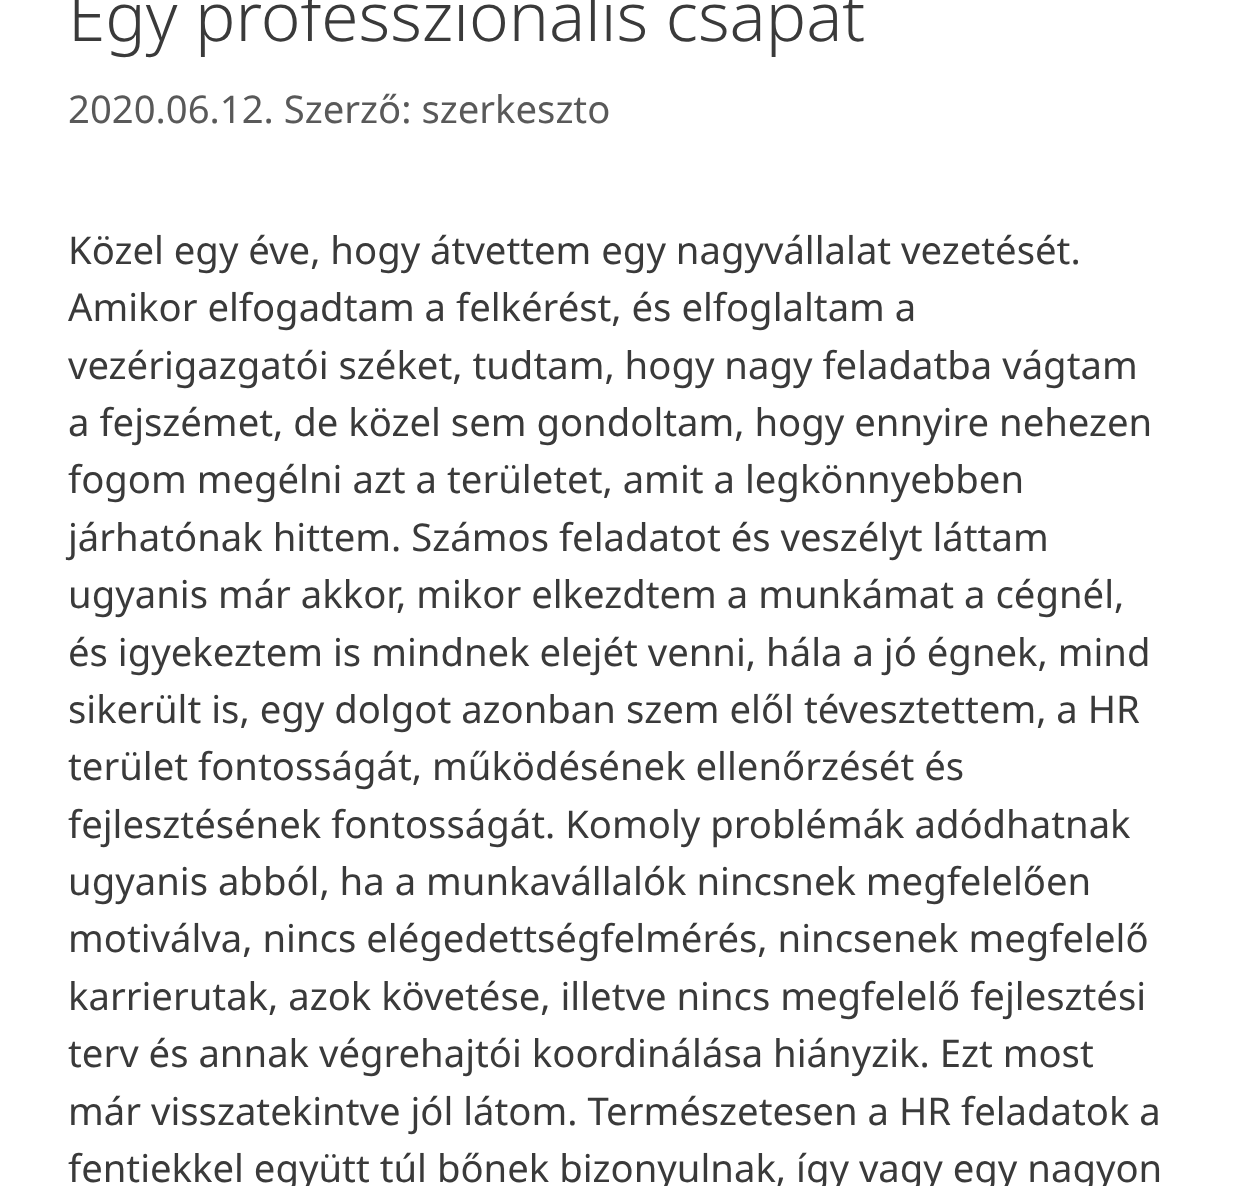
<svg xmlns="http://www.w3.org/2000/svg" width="1235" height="1186">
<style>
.a{font:300 67.5px Noto Sans;fill:#3a3a3a}
.b{font:38.25px Noto Sans;fill:#595959}
.c{font:38.25px Noto Sans;fill:#3a3a3a}
</style>
<rect width="100%" height="100%" fill="#fff"/>
<text class="a" x="68" y="41">Egy professzionális csapat</text>
<text class="b" x="68" y="123">2020.06.12. Szerző: szerkeszto</text>
<text class="c" x="68" y="264">Közel egy éve, hogy átvettem egy nagyvállalat vezetését.</text>
<text class="c" x="68" y="321">Amikor elfogadtam a felkérést, és elfoglaltam a</text>
<text class="c" x="68" y="379">vezérigazgatói széket, tudtam, hogy nagy feladatba vágtam</text>
<text class="c" x="68" y="436">a fejszémet, de közel sem gondoltam, hogy ennyire nehezen</text>
<text class="c" x="68" y="493">fogom megélni azt a területet, amit a legkönnyebben</text>
<text class="c" x="68" y="551">járhatónak hittem. Számos feladatot és veszélyt láttam</text>
<text class="c" x="68" y="608">ugyanis már akkor, mikor elkezdtem a munkámat a cégnél,</text>
<text class="c" x="68" y="666">és igyekeztem is mindnek elejét venni, hála a jó égnek, mind</text>
<text class="c" x="68" y="723">sikerült is, egy dolgot azonban szem elől tévesztettem, a HR</text>
<text class="c" x="68" y="780">terület fontosságát, működésének ellenőrzését és</text>
<text class="c" x="68" y="838">fejlesztésének fontosságát. Komoly problémák adódhatnak</text>
<text class="c" x="68" y="895">ugyanis abból, ha a munkavállalók nincsnek megfelelően</text>
<text class="c" x="68" y="952">motiválva, nincs elégedettségfelmérés, nincsenek megfelelő</text>
<text class="c" x="68" y="1010">karrierutak, azok követése, illetve nincs megfelelő fejlesztési</text>
<text class="c" x="68" y="1067">terv és annak végrehajtói koordinálása hiányzik. Ezt most</text>
<text class="c" x="68" y="1125">már visszatekintve jól látom. Természetesen a HR feladatok a</text>
<text class="c" x="68" y="1182">fentiekkel együtt túl bőnek bizonyulnak, így vagy egy nagyon</text>
</svg>
